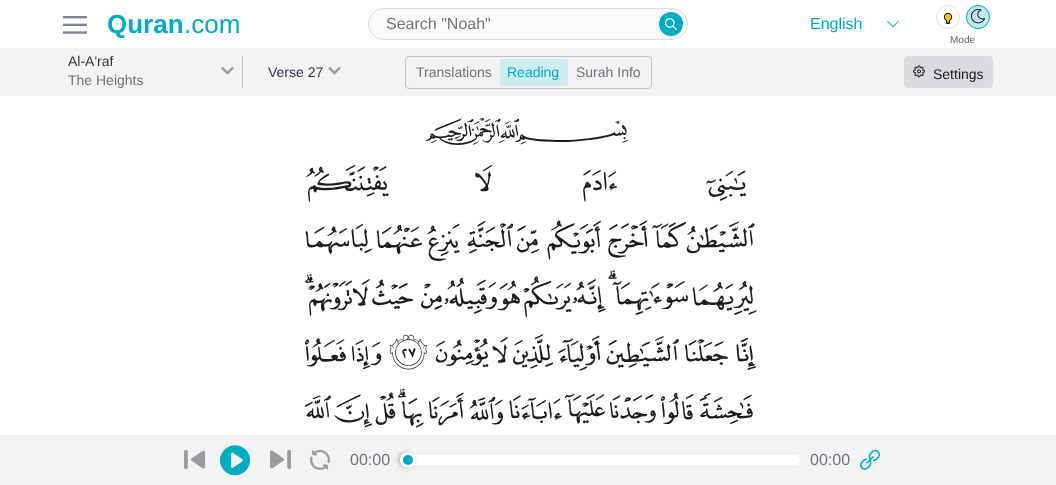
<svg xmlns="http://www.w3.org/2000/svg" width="1056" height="485">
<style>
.a{font:bold 26px Liberation Sans;fill:#00acc2}
.b{font:26px Liberation Sans;fill:#00acc2}
.c{font:16px Liberation Sans;fill:#757575}
.d{font:16px Liberation Sans;fill:#00acc2}
.e{font:10px Liberation Sans;fill:#595959}
.f{font:14px Liberation Sans;fill:#333647}
.g{font:14px Liberation Sans;fill:#71727e}
.h{font:14px Liberation Sans;fill:#00acc2}
.i{font:14px Liberation Sans;fill:#1c1c20}
.j{font:40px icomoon;fill:#1c1c20}
.k{font:30px 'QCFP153';direction:rtl;fill:#1c1c20}
.l{font:16px Liberation Sans;fill:#71727e}
</style>
<rect width="100%" height="100%" fill="#fff"/>
<image href="1.png" x="63" y="16" width="24" height="18"/>
<rect fill="#fbfbfb" stroke="#dadbde" x="368.5" y="8.5" width="319" height="31" rx="15.5"/>
<circle fill="#00acc2" cx="671" cy="24" r="12"/>
<image href="2.png" x="665" y="18" width="12" height="13"/>
<image href="3.png" x="887" y="20" width="12" height="8"/>
<image href="4.png" x="943" y="12" width="10" height="12"/>
<circle fill="none" stroke="#dfdfe0" cx="948" cy="17" r="11.5"/>
<circle fill="#c0eaf0" cx="978" cy="17" r="12"/>
<image href="5.png" x="971" y="9" width="14" height="15"/>
<circle fill="none" stroke="#00acc2" cx="978" cy="17" r="11.5"/>
<path fill="#f3f3f4" d="M0 48h1056v48H0z"/>
<image href="6.png" x="221" y="66" width="13" height="9"/>
<path fill="#c1c2c7" d="M242 56h1v32H242z"/>
<image href="6.png" x="328" y="66" width="13" height="9"/>
<rect fill="none" stroke="#c1c2c7" x="405.5" y="56.5" width="246" height="32" rx="3.5"/>
<rect fill="#cdecf1" x="500" y="59" width="68" height="27" rx="3"/>
<rect fill="#dadbde" x="904" y="56" width="89" height="32" rx="4"/>
<image href="7.png" x="913" y="65" width="12" height="13"/>
<path fill="#f3f3f4" d="M0 435h1056v50H0z"/>
<image href="8.png" x="184" y="450" width="21" height="20"/>
<image href="9.png" x="220" y="445" width="30" height="31"/>
<image href="10.png" x="270" y="449" width="21" height="21"/>
<image href="11.png" x="310" y="449" width="20" height="21"/>
<rect fill="#fff" x="400" y="455" width="400" height="10" rx="5"/>
<rect fill="#83838380" filter="blur(2px)" x="398" y="452" width="16" height="16" rx="8"/>
<circle fill="#00acc2" stroke="#fff" stroke-width="3" cx="408" cy="460" r="6.5"/>
<image href="12.png" x="860" y="449" width="20" height="21"/>
<text class="a" x="107" y="33">Quran</text>
<text class="b" x="184" y="33">.com</text>
<text class="c" x="386" y="29">Search "Noah"</text>
<text class="d" x="810" y="29">English</text>
<text class="e" x="950" y="43">Mode</text>
<text class="f" x="68" y="66">Al-A'raf</text>
<text class="g" x="68" y="85">The Heights</text>
<text class="f" x="268" y="77">Verse 27</text>
<text class="g" x="416" y="77">Translations</text>
<text class="h" x="507" y="77">Reading</text>
<text class="g" x="576" y="77">Surah Info</text>
<text class="i" x="933" y="79">Settings</text>
<text class="j" x="400" y="150">﷽</text>
<text class="k" x="387" y="190">ﮍ</text>
<text class="k" x="491" y="190">ﮌ</text>
<text class="k" x="617" y="190">ﮋ</text>
<text class="k" x="753" y="190">ﮊ</text>
<text class="k" x="368" y="247">ﮖ</text>
<text class="k" x="422" y="247">ﮕ</text>
<text class="k" x="458" y="247">ﮔ</text>
<text class="k" x="511" y="247">ﮓ</text>
<text class="k" x="538" y="247">ﮒ</text>
<text class="k" x="600" y="247">ﮑ</text>
<text class="k" x="647" y="247">ﮐ</text>
<text class="k" x="678" y="247">ﮏ</text>
<text class="k" x="753" y="247">ﮎ</text>
<text class="k" x="304" y="304">ﮢ</text>
<text class="k" x="368" y="304">ﮠ</text>
<text class="k" x="416" y="304">ﮟ</text>
<text class="k" x="497" y="304">ﮝ</text>
<text class="k" x="570" y="304">ﮛ</text>
<text class="k" x="607" y="304">ﮚ</text>
<text class="k" x="609" y="304">ﮙ</text>
<text class="k" x="352" y="304">ﮡ</text>
<text class="k" x="442" y="304">ﮞ</text>
<text class="k" x="520" y="304">ﮜ</text>
<text class="k" x="688" y="304">ﮘ</text>
<text class="k" x="753" y="304">ﮗ</text>
<text class="k" x="346" y="361">ﮬ</text>
<text class="k" x="388" y="361">ﮫ</text>
<text class="k" x="427" y="361">ﮪ</text>
<text class="k" x="488" y="361">ﮩ</text>
<text class="k" x="507" y="361">ﮨ</text>
<text class="k" x="550" y="361">ﮧ</text>
<text class="k" x="600" y="361">ﮦ</text>
<text class="k" x="677" y="361">ﮥ</text>
<text class="k" x="728" y="361">ﮤ</text>
<text class="k" x="753" y="361">ﮣ</text>
<text class="k" x="329" y="418">ﯙ</text>
<text class="k" x="369" y="418">ﯘ</text>
<text class="k" x="395" y="418">ﯗ</text>
<text class="k" x="398" y="418">ﯖ</text>
<text class="k" x="463" y="418">ﯔ</text>
<text class="k" x="503" y="418">ﯓ</text>
<text class="k" x="562" y="418">ﮱ</text>
<text class="k" x="605" y="418">ﮰ</text>
<text class="k" x="656" y="418">ﮯ</text>
<text class="k" x="693" y="418">ﮮ</text>
<text class="k" x="753" y="418">ﮭ</text>
<text class="k" x="422" y="418">ﯕ</text>
<text class="l" x="350" y="465">00:00</text>
<text class="l" x="810" y="465">00:00</text>
</svg>
